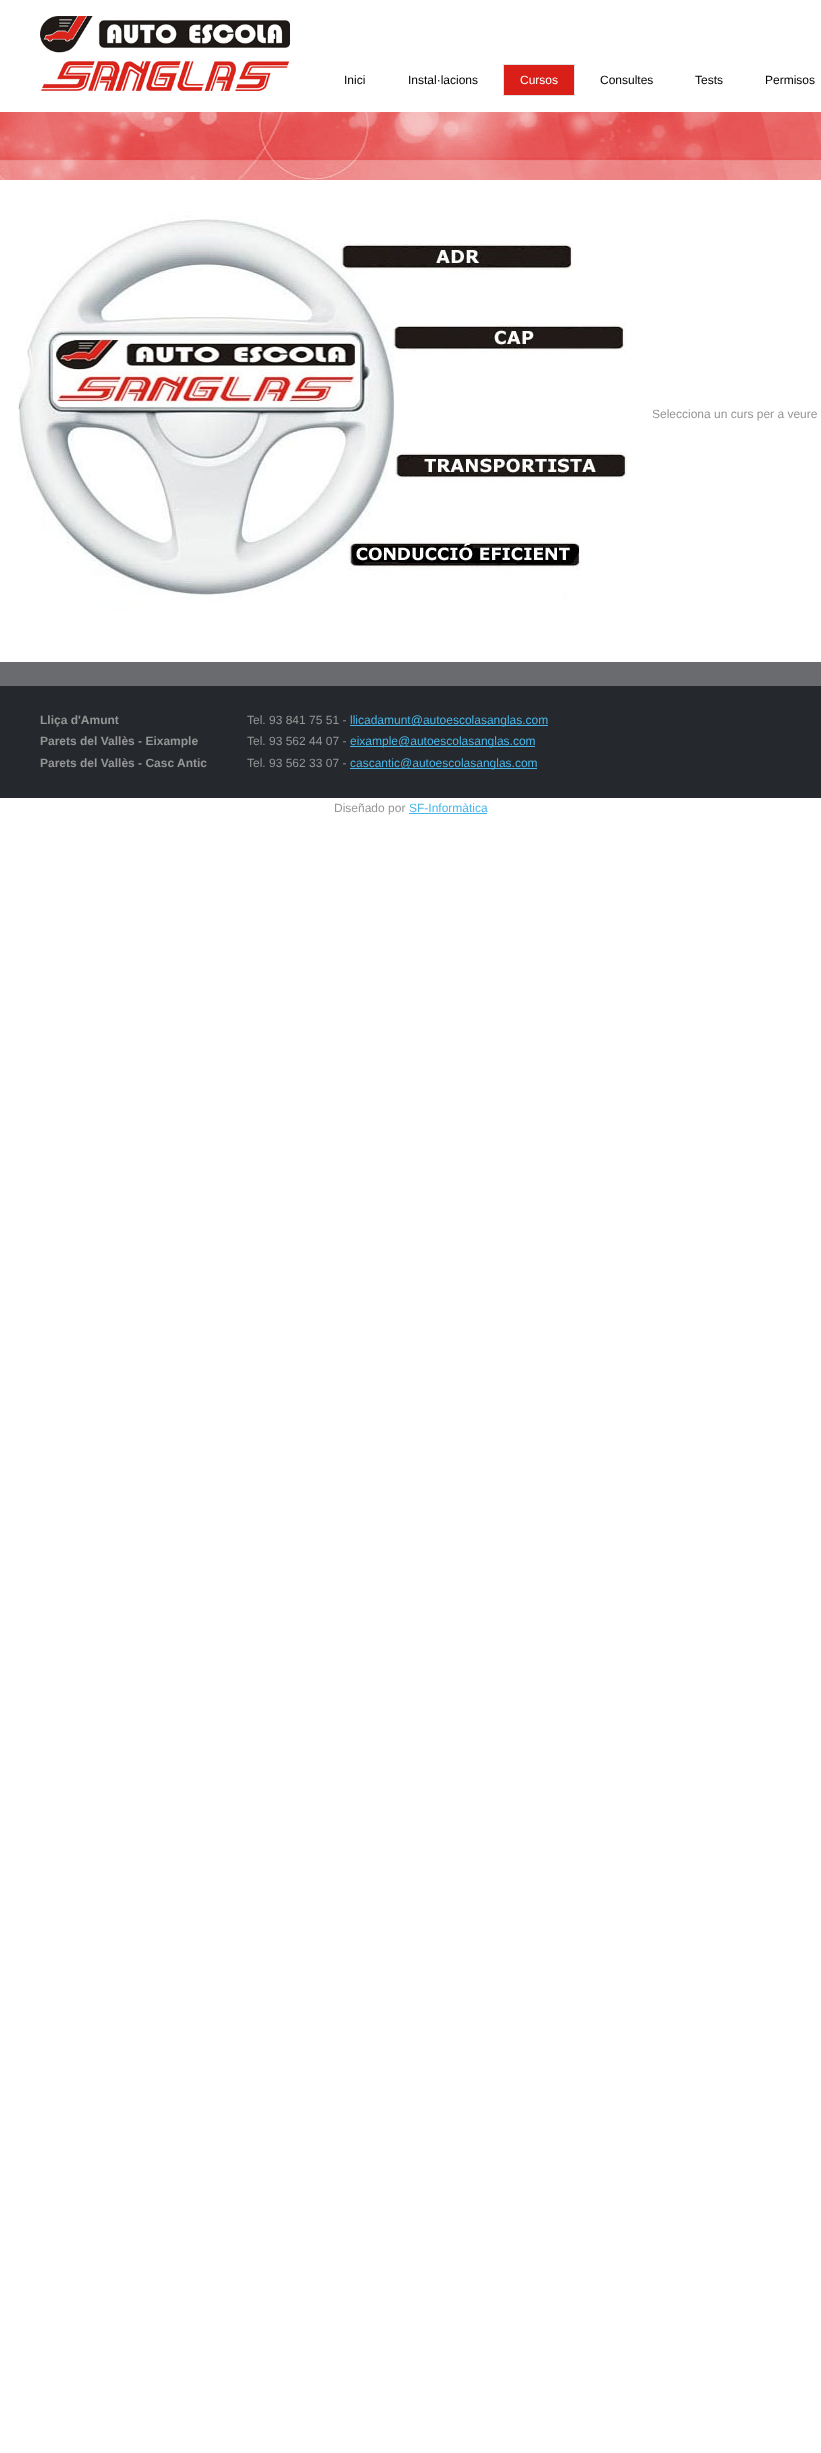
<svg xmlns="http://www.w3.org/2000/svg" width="821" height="2453">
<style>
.a{font:12px Liberation Sans;fill:#000}
.b{font:12px Liberation Sans;fill:#fff}
.c{font:12px Liberation Sans;fill:#959595}
.d{font:bold 12px Liberation Sans;fill:#959595}
.e{font:12px Liberation Sans;fill:#49b6e9}
</style>
<rect width="100%" height="100%" fill="#fff"/>
<image href="1.png" x="0" y="112" width="821" height="68"/>
<image href="2.png" x="40" y="16" width="250" height="75"/>
<path fill="#d91f17" stroke="#e2e2e2" d="M503.5 64.5h71v31H503.5z"/>
<image href="3.png" x="17" y="211" width="610" height="400"/>
<path fill="#25292e" d="M0 686h821v112H0z"/>
<path fill="#696b6f" d="M0 662h821v24H0z"/>
<path fill="#49b6e9" d="M350 725h198v1H350z"/>
<path fill="#49b6e9" d="M350 746h185v1H350z"/>
<path fill="#49b6e9" d="M350 768h187v1H350z"/>
<path fill="#49b6e9" d="M409 813h78v1H409z"/>
<text class="a" x="344" y="84">Inici</text>
<text class="a" x="408" y="84">Instal·lacions</text>
<text class="b" x="520" y="84">Cursos</text>
<text class="a" x="600" y="84">Consultes</text>
<text class="a" x="695" y="84">Tests</text>
<text class="a" x="765" y="84">Permisos</text>
<text class="c" x="652" y="418">Selecciona un curs per a veure</text>
<text class="d" x="40" y="724">Lliça d'Amunt</text>
<text class="d" x="40" y="745">Parets del Vallès - Eixample</text>
<text class="d" x="40" y="767">Parets del Vallès - Casc Antic</text>
<text class="c" x="247" y="724">Tel. 93 841 75 51 -</text>
<text class="e" x="350" y="724">llicadamunt@autoescolasanglas.com</text>
<text class="c" x="247" y="745">Tel. 93 562 44 07 -</text>
<text class="e" x="350" y="745">eixample@autoescolasanglas.com</text>
<text class="c" x="247" y="767">Tel. 93 562 33 07 -</text>
<text class="e" x="350" y="767">cascantic@autoescolasanglas.com</text>
<text class="c" x="334" y="812">Diseñado por</text>
<text class="e" x="409" y="812">SF-Informàtica</text>
</svg>
